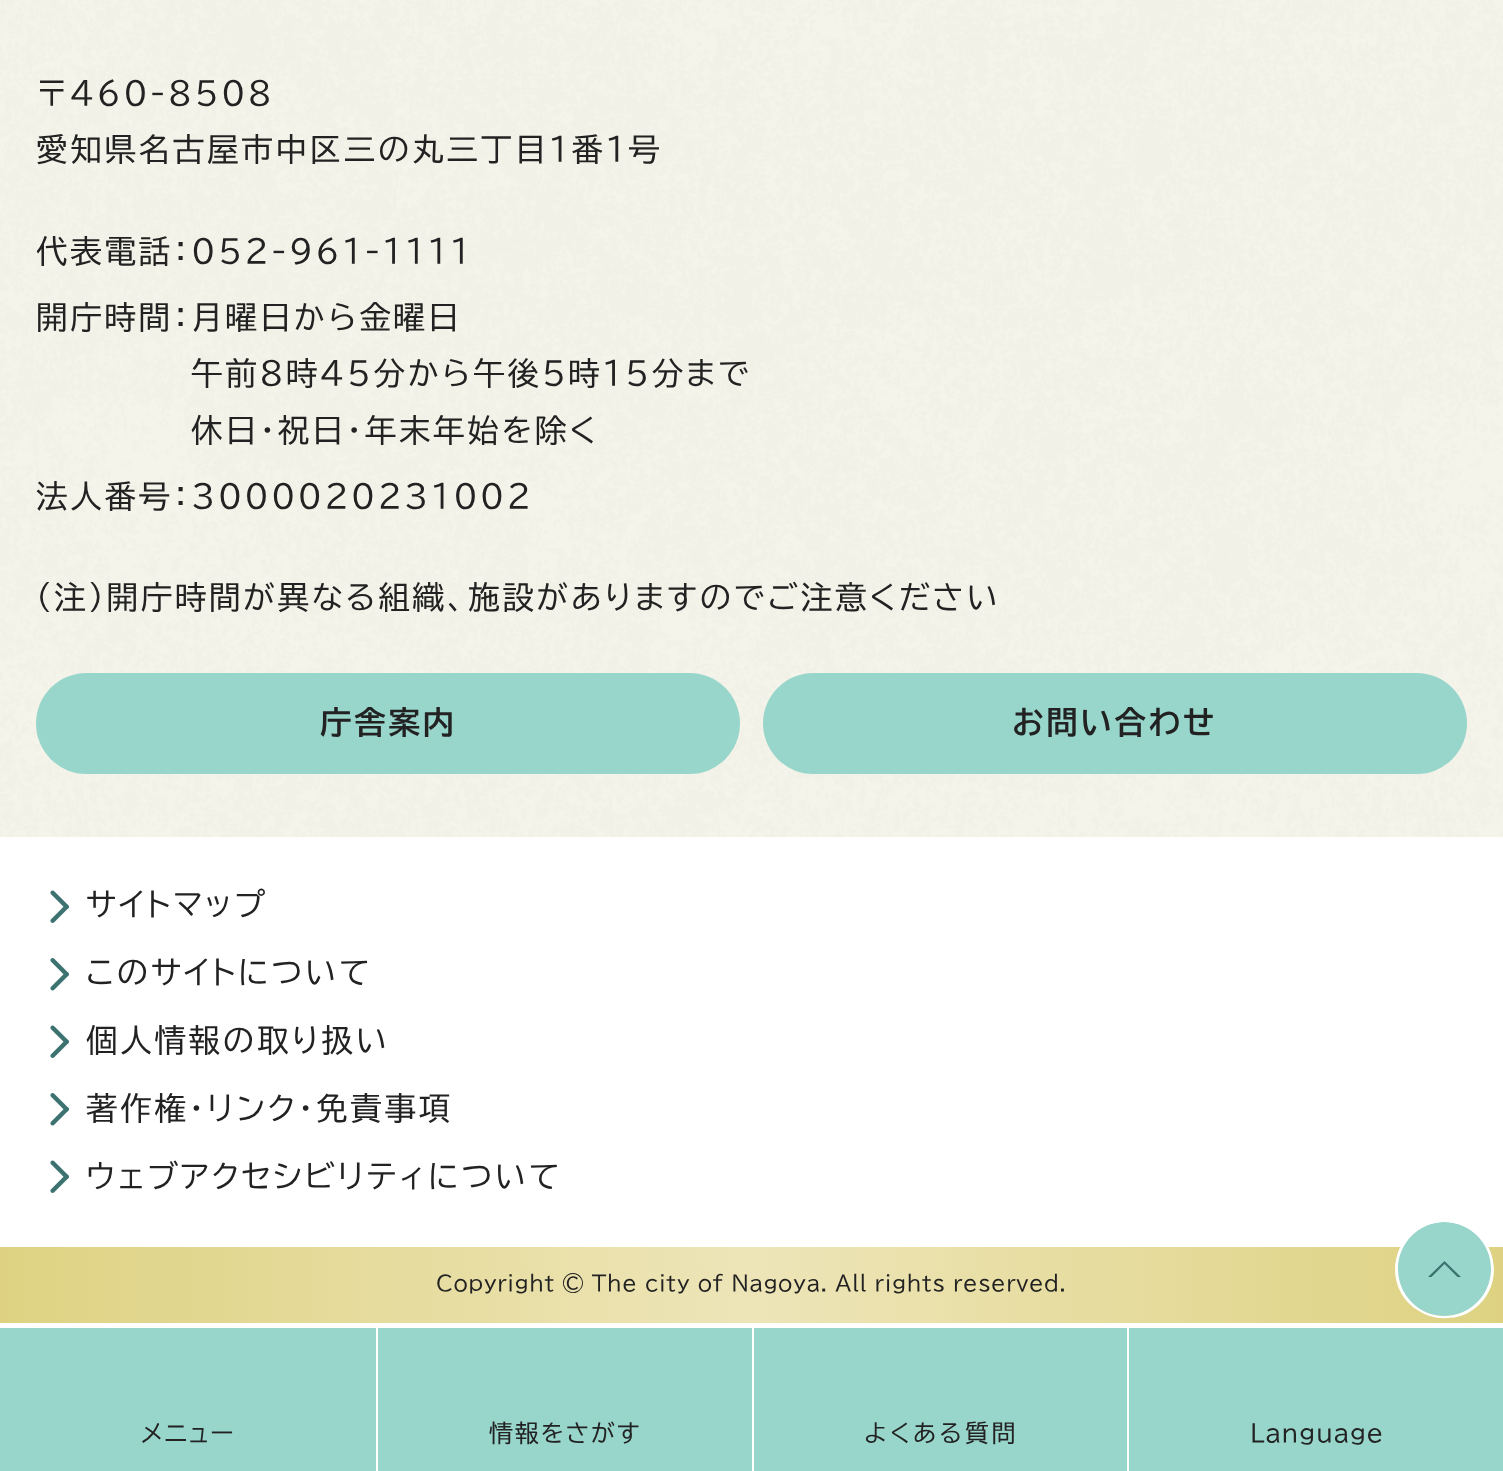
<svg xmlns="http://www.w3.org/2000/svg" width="1503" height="1471">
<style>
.a{font:31.5px BIZ UDPGothic;letter-spacing:2.7px;fill:#222}
.b{font:bold 31.5px BIZ UDPGothic;letter-spacing:2.7px;fill:#222}
.c{font:20.95px BIZ UDPGothic;letter-spacing:0.63px;fill:#222}
.d{font:24px BIZ UDPGothic;letter-spacing:1.75px;fill:#222}
.e{font:24px BIZ UDPGothic;letter-spacing:2.7px;fill:#222}
.f{font:24px BIZ UDPGothic;letter-spacing:0.75px;fill:#222}
</style>
<defs>
<linearGradient id="g1" gradientUnits="userSpaceOnUse" x1="0" y1="1285" x2="1503" y2="1285"><stop offset="0" stop-color="#ded282"/><stop offset="0.5" stop-color="#ede5b8"/><stop offset="1" stop-color="#ded282"/></linearGradient>
</defs>
<rect width="100%" height="100%" fill="#fff"/>
<image href="1.png" x="0" y="0" width="1503" height="837"/>
<rect fill="#98d6cc" x="36" y="673" width="704" height="101" rx="50.5"/>
<rect fill="#98d6cc" x="763" y="673" width="704" height="101" rx="50.5"/>
<image href="2.png" x="50" y="890" width="19" height="33"/>
<image href="3.png" x="50" y="958" width="19" height="33"/>
<image href="2.png" x="50" y="1025" width="19" height="33"/>
<image href="3.png" x="50" y="1093" width="19" height="33"/>
<image href="2.png" x="50" y="1160" width="19" height="33"/>
<path fill="url(#g1)" d="M0 1247h1503v76H0z"/>
<circle fill="#98d6cc" cx="1444.5" cy="1269" r="47"/>
<path fill="#fff" d="M1444 1222c-25 0-46 21-46 47c0 26 21 47 46 47c26 0 47-21 47-47c0-26-21-47-47-47m0-2c48-1 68 61 30 89c-8 6-17 9-27 9c-10 1-20-2-28-7c-43-25-24-92 25-91z"/>
<path fill="#3c726f" d="M1461 1277h-3.5l-13-13l-13 13h-3.5l16.5-16z"/>
<path fill="#98d6cc" d="M0 1328h1503v143H0z"/>
<path fill="#fff" d="M376 1328h2v143H376z"/>
<path fill="#fff" d="M752 1328h2v143H752z"/>
<path fill="#fff" d="M1127 1328h2v143H1127z"/>
<text class="a" x="36" y="105">〒460-8508</text>
<text class="a" x="36" y="161">愛知県名古屋市中区三の丸三丁目1番1号</text>
<text class="a" x="36" y="263">代表電話：052-961-1111</text>
<text class="a" x="36" y="329">開庁時間：月曜日から金曜日</text>
<text class="a" x="191" y="385">午前8時45分から午後5時15分まで</text>
<text class="a" x="191" y="442">休日・祝日・年末年始を除く</text>
<text class="a" x="36" y="508">法人番号：3000020231002</text>
<text class="a" x="36" y="609">(注)開庁時間が異なる組織、施設がありますのでご注意ください</text>
<text class="b" x="320" y="734">庁舎案内</text>
<text class="b" x="1012" y="734">お問い合わせ</text>
<text class="a" x="86" y="916">サイトマップ</text>
<text class="a" x="86" y="984">このサイトについて</text>
<text class="a" x="86" y="1052">個人情報の取り扱い</text>
<text class="a" x="86" y="1120">著作権・リンク・免責事項</text>
<text class="a" x="86" y="1188">ウェブアクセシビリティについて</text>
<text class="c" x="436" y="1291">Copyright © The city of Nagoya. All rights reserved.</text>
<text class="d" x="141" y="1442">メニュー</text>
<text class="d" x="489" y="1442">情報をさがす</text>
<text class="e" x="864" y="1442">よくある質問</text>
<text class="f" x="1250" y="1442">Language</text>
</svg>
